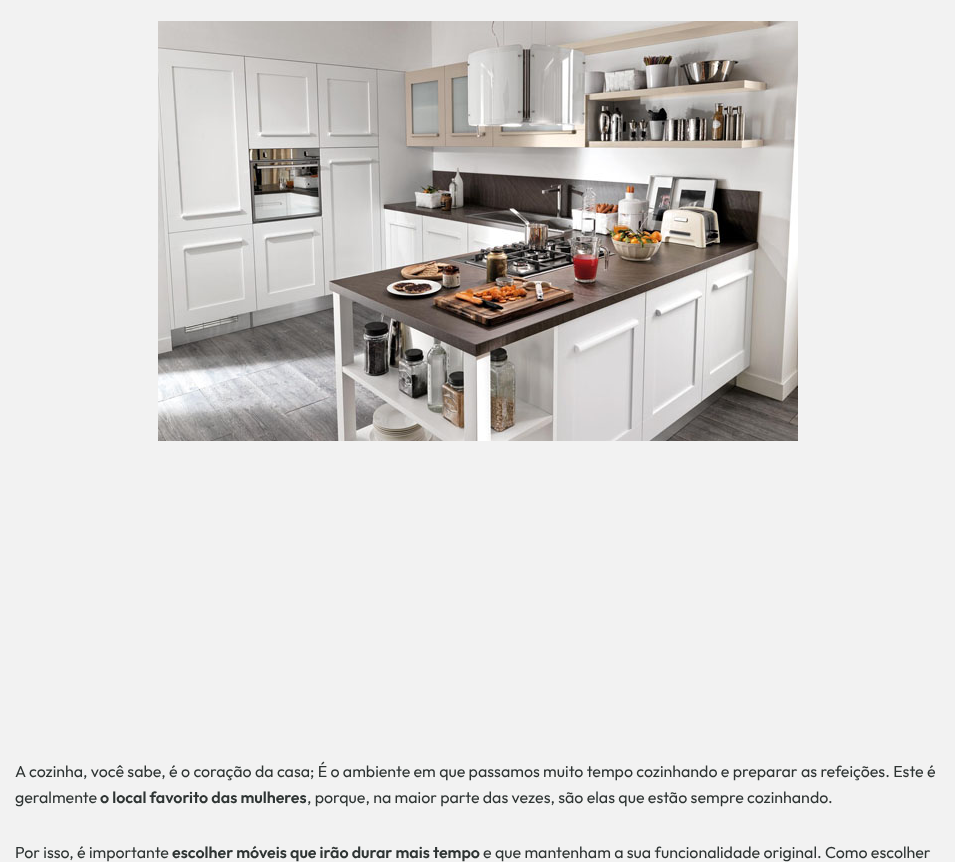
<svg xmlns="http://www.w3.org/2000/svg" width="955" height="862">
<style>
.a{font:16px Outfit;fill:#2e3433}
.b{font:600 16px Outfit;fill:#2e3433}
</style>
<rect width="100%" height="100%" fill="#f2f2f2"/>
<image href="1.png" x="158" y="21" width="640" height="420"/>
<text class="a" x="15" y="777">A cozinha, você sabe, é o coração da casa; É o ambiente em que passamos muito tempo cozinhando e preparar as refeições. Este é</text>
<text class="a" x="15" y="803">geralmente</text>
<text class="b" x="100" y="803">o local favorito das mulheres</text>
<text class="a" x="307" y="803">, porque, na maior parte das vezes, são elas que estão sempre cozinhando.</text>
<text class="a" x="15" y="858">Por isso, é importante</text>
<text class="b" x="172" y="858">escolher móveis que irão durar mais tempo</text>
<text class="a" x="483" y="858">e que mantenham a sua funcionalidade original. Como escolher</text>
</svg>
